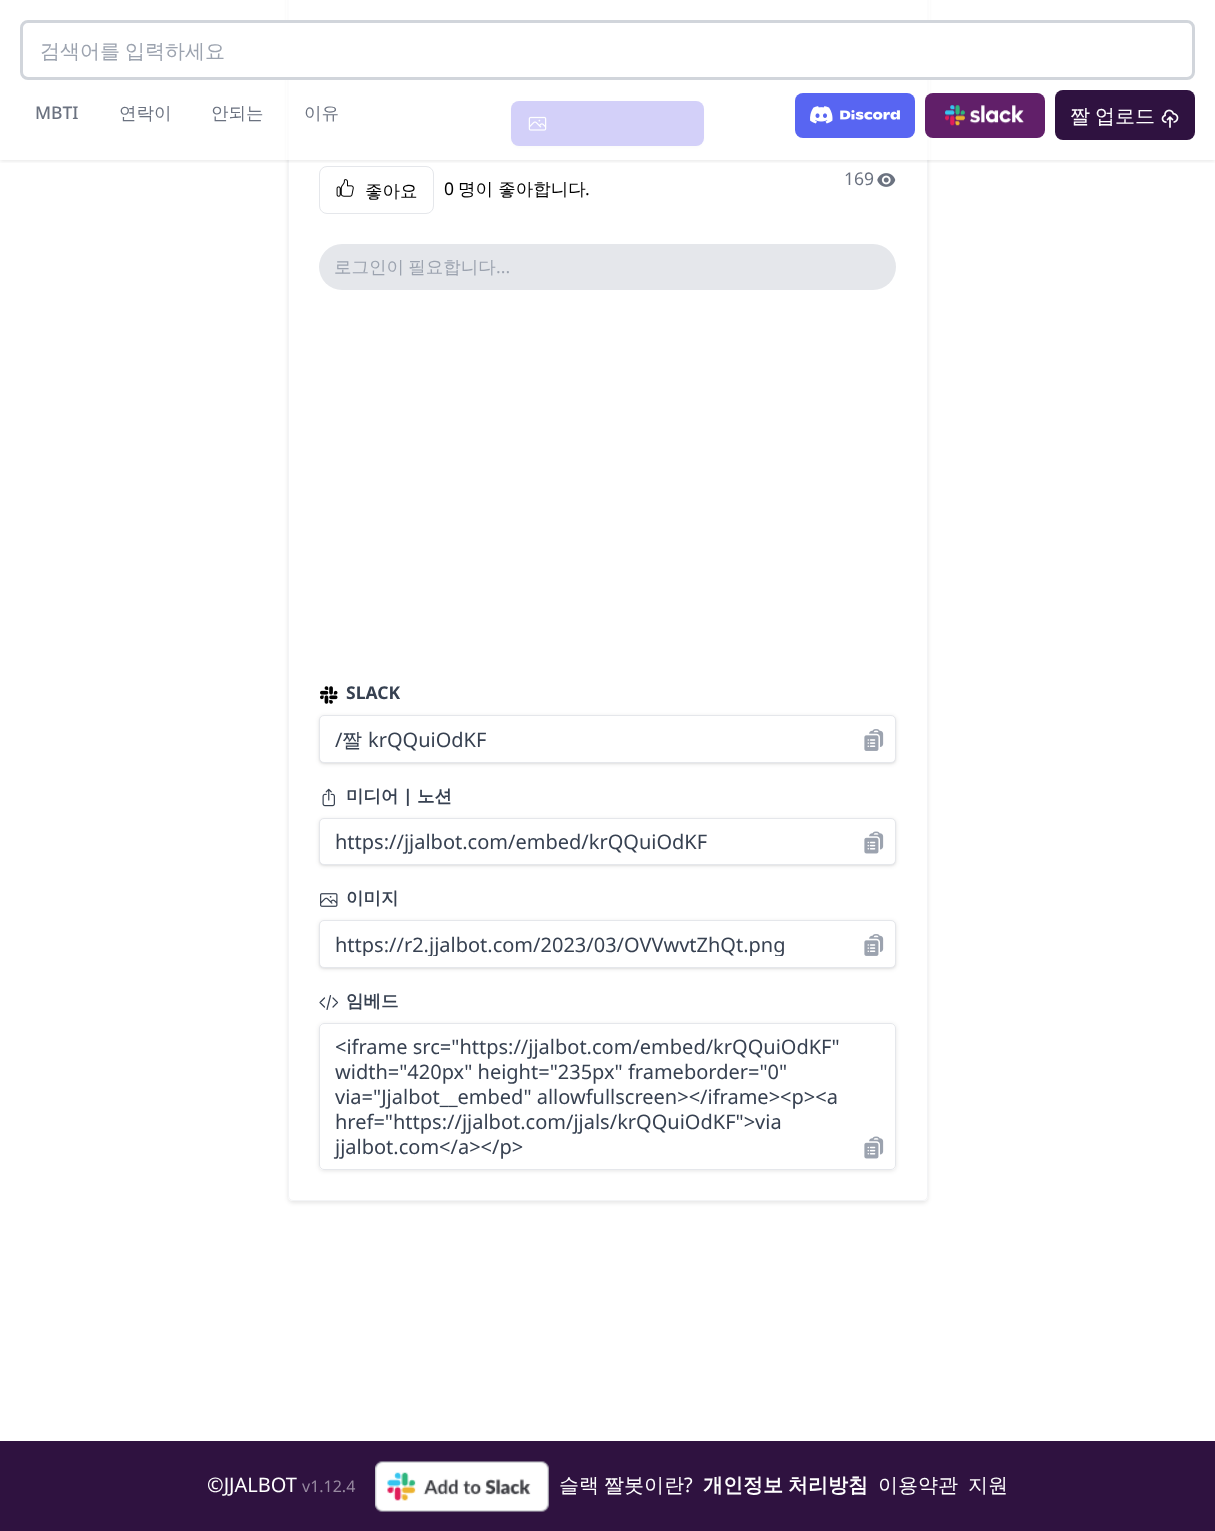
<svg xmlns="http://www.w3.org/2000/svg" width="1215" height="1531">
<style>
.a{font:500 20px WenQuanYi Zen Hei;fill:#9ca3af}
.b{font:500 17.5px Noto Sans;fill:#6b7280}
.c{font:500 17.5px WenQuanYi Zen Hei;fill:#6b7280}
.d{font:500 20px WenQuanYi Zen Hei;fill:#fff}
.e{font:17.5px Noto Sans;fill:#6b7280}
.f{font:500 17.5px WenQuanYi Zen Hei;fill:#000}
.g{font:17.5px Noto Sans;fill:#000}
.h{font:500 17.5px WenQuanYi Zen Hei;fill:#9ca3af}
.i{font:17.5px Noto Sans;fill:#9ca3af}
.j{font:bold 17.5px Noto Sans;fill:#374151}
.k{font:20px Noto Sans;fill:#374151}
.l{font:500 20px WenQuanYi Zen Hei;fill:#374151}
.m{font:bold 17.5px WenQuanYi Zen Hei;fill:#374151}
.n{font:20px Noto Sans;fill:#fff}
.o{font:16px Noto Sans;fill:#9789a0}
.p{font:bold 20px WenQuanYi Zen Hei;fill:#fff}
</style>
<defs>
<clipPath id="clip1"><path d="M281 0h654v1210h-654zm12-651h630c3 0 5 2 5 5v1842c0 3-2 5-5 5h-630c-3 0-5-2-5-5v-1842c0-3 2-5 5-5z" clip-rule="evenodd"/></clipPath>
<clipPath id="clip2"><path d="M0 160h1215v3H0z"/></clipPath>
<clipPath id="clip3"><path d="M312 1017h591v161h-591zm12 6h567c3 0 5 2 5 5v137c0 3-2 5-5 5h-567c-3 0-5-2-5-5v-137c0-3 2-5 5-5z" clip-rule="evenodd"/></clipPath>
<clipPath id="clip4"><path d="M335 931h545v25H335z"/></clipPath>
</defs>
<rect width="100%" height="100%" fill="#fff"/>
<g clip-path="url(#clip1)">
<rect fill="#0000001a" filter="blur(2px)" x="288" y="-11" width="640" height="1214" rx="5"/>
</g>
<rect fill="none" stroke="#f3f4f6" x="288.5" y="-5.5" width="639" height="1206" rx="4.5"/>
<rect fill="#0000000d" filter="blur(1px)" x="511" y="103" width="193" height="45" rx="8"/>
<rect fill="#4f46e5" x="511" y="101" width="193" height="45" rx="8"/>
<image href="4.png" x="528" y="116" width="19" height="15"/>
<rect fill="none" stroke="#e5e7eb" x="319.5" y="166.5" width="114" height="47" rx="7.5"/>
<g clip-path="url(#clip2)">
<path fill="#0000001a" filter="blur(2px)" d="M0 1h1215v160H0z"/>
</g>
<path fill="#ffffffbf" d="M286 0h644v160H286z"/>
<rect fill="#fff" stroke="#d1d5db" stroke-width="3" x="21.5" y="21.5" width="1172" height="57" rx="6.5"/>
<rect fill="#5865f2" x="795" y="93" width="120" height="45" rx="8"/>
<image href="1.png" x="810" y="106" width="90" height="18"/>
<rect fill="#611f69" x="925" y="93" width="120" height="45" rx="8"/>
<image href="2.png" x="945" y="105" width="79" height="21"/>
<rect fill="#2f1240" x="1055" y="90" width="140" height="50" rx="8"/>
<image href="3.png" x="1161" y="109" width="18" height="19"/>
<image href="5.png" x="877" y="173" width="19" height="14"/>
<image href="6.png" x="336" y="179" width="18" height="18"/>
<rect fill="#e5e7eb" x="319" y="244" width="577" height="46" rx="23"/>
<image href="7.png" x="320" y="686" width="18" height="18"/>
<rect fill="#0000001a" filter="blur(1px)" x="320" y="718" width="575" height="45" rx="4"/>
<rect fill="#0000001a" filter="blur(2px)" x="319" y="716" width="577" height="48" rx="5"/>
<rect fill="#fff" stroke="#e5e7eb" x="319.5" y="715.5" width="576" height="47" rx="4.5"/>
<image href="8.png" x="864" y="729" width="20" height="22"/>
<image href="9.png" x="322" y="788" width="13" height="19"/>
<rect fill="#0000001a" filter="blur(1px)" x="320" y="820" width="575" height="45" rx="4"/>
<rect fill="#0000001a" filter="blur(2px)" x="319" y="819" width="577" height="47" rx="5"/>
<rect fill="#fff" stroke="#e5e7eb" x="319.5" y="818.5" width="576" height="46" rx="4.5"/>
<image href="10.png" x="864" y="831" width="20" height="23"/>
<image href="11.png" x="320" y="893" width="18" height="14"/>
<rect fill="#0000001a" filter="blur(1px)" x="320" y="923" width="575" height="45" rx="4"/>
<rect fill="#0000001a" filter="blur(2px)" x="319" y="921" width="577" height="48" rx="5"/>
<rect fill="#fff" stroke="#e5e7eb" x="319.5" y="920.5" width="576" height="47" rx="4.5"/>
<image href="8.png" x="864" y="934" width="20" height="22"/>
<path fill="none" stroke="#374151" stroke-width="1.2" stroke-linecap="round" stroke-linejoin="round" d="M333 998l4.5 4.5l-4.5 4.5m-8.5 0l-4.5-4.5l4.5-4.5m6-2.5l-3.5 14"/>
<g clip-path="url(#clip3)">
<rect fill="#0000001a" filter="blur(2px)" x="319" y="1024" width="577" height="147" rx="5"/>
</g>
<rect fill="none" stroke="#e5e7eb" x="319.5" y="1023.5" width="576" height="146" rx="4.5"/>
<image href="10.png" x="864" y="1136" width="20" height="23"/>
<path fill="#2f1240" d="M0 1441h1215v90H0z"/>
<image href="12.png" x="375" y="1461" width="174" height="51"/>
<text class="a" x="40" y="58" word-spacing="-1">검색어를 입력하세요</text>
<text class="b" x="35" y="119">MBTI</text>
<text class="c" x="119" y="119">연락이</text>
<text class="c" x="211" y="119">안되는</text>
<text class="c" x="304" y="119">이유</text>
<text class="d" x="1070" y="123" word-spacing="-1">짤 업로드</text>
<text class="e" x="844" y="185">169</text>
<text class="f" x="365" y="197">좋아요</text>
<text class="g" x="444" y="195">0</text>
<text class="f" x="458" y="195">명이 좋아합니다</text>
<text class="g" x="585" y="195">.</text>
<text class="h" x="334" y="273" word-spacing="-1">로그인이 필요합니다</text>
<text class="i" x="496" y="273">...</text>
<text class="j" x="346" y="699">SLACK</text>
<text class="k" x="335" y="747">/</text>
<text class="l" x="342" y="747">짤</text>
<text class="k" x="368" y="747">krQQuiOdKF</text>
<text class="m" x="346" y="802">미디어</text>
<text class="j" x="403" y="802">|</text>
<text class="m" x="417" y="802">노션</text>
<text class="k" x="335" y="849">https://jjalbot.com/embed/krQQuiOdKF</text>
<text class="m" x="346" y="904">이미지</text>
<g clip-path="url(#clip4)">
<text class="k" x="335" y="952">https://r2.jjalbot.com/2023/03/OVVwvtZhQt.png</text>
</g>
<text class="m" x="346" y="1007">임베드</text>
<text class="k" x="335" y="1054">&lt;iframe src="https://jjalbot.com/embed/krQQuiOdKF"</text>
<text class="k" x="335" y="1079">width="420px" height="235px" frameborder="0"</text>
<text class="k" x="335" y="1104">via="Jjalbot__embed" allowfullscreen&gt;&lt;/iframe&gt;&lt;p&gt;&lt;a</text>
<text class="k" x="335" y="1129">href="https://jjalbot.com/jjals/krQQuiOdKF"&gt;via</text>
<text class="k" x="335" y="1154">jjalbot.com&lt;/a&gt;&lt;/p&gt;</text>
<text class="n" x="207" y="1492">©JJALBOT</text>
<text class="o" x="302" y="1492">v1.12.4</text>
<text class="d" x="559" y="1492" word-spacing="-1">슬랙 짤봇이란</text>
<text class="n" x="684" y="1492">?</text>
<text class="p" x="703" y="1492" word-spacing="-1">개인정보 처리방침</text>
<text class="d" x="878" y="1492">이용약관</text>
<text class="d" x="968" y="1492">지원</text>
</svg>
